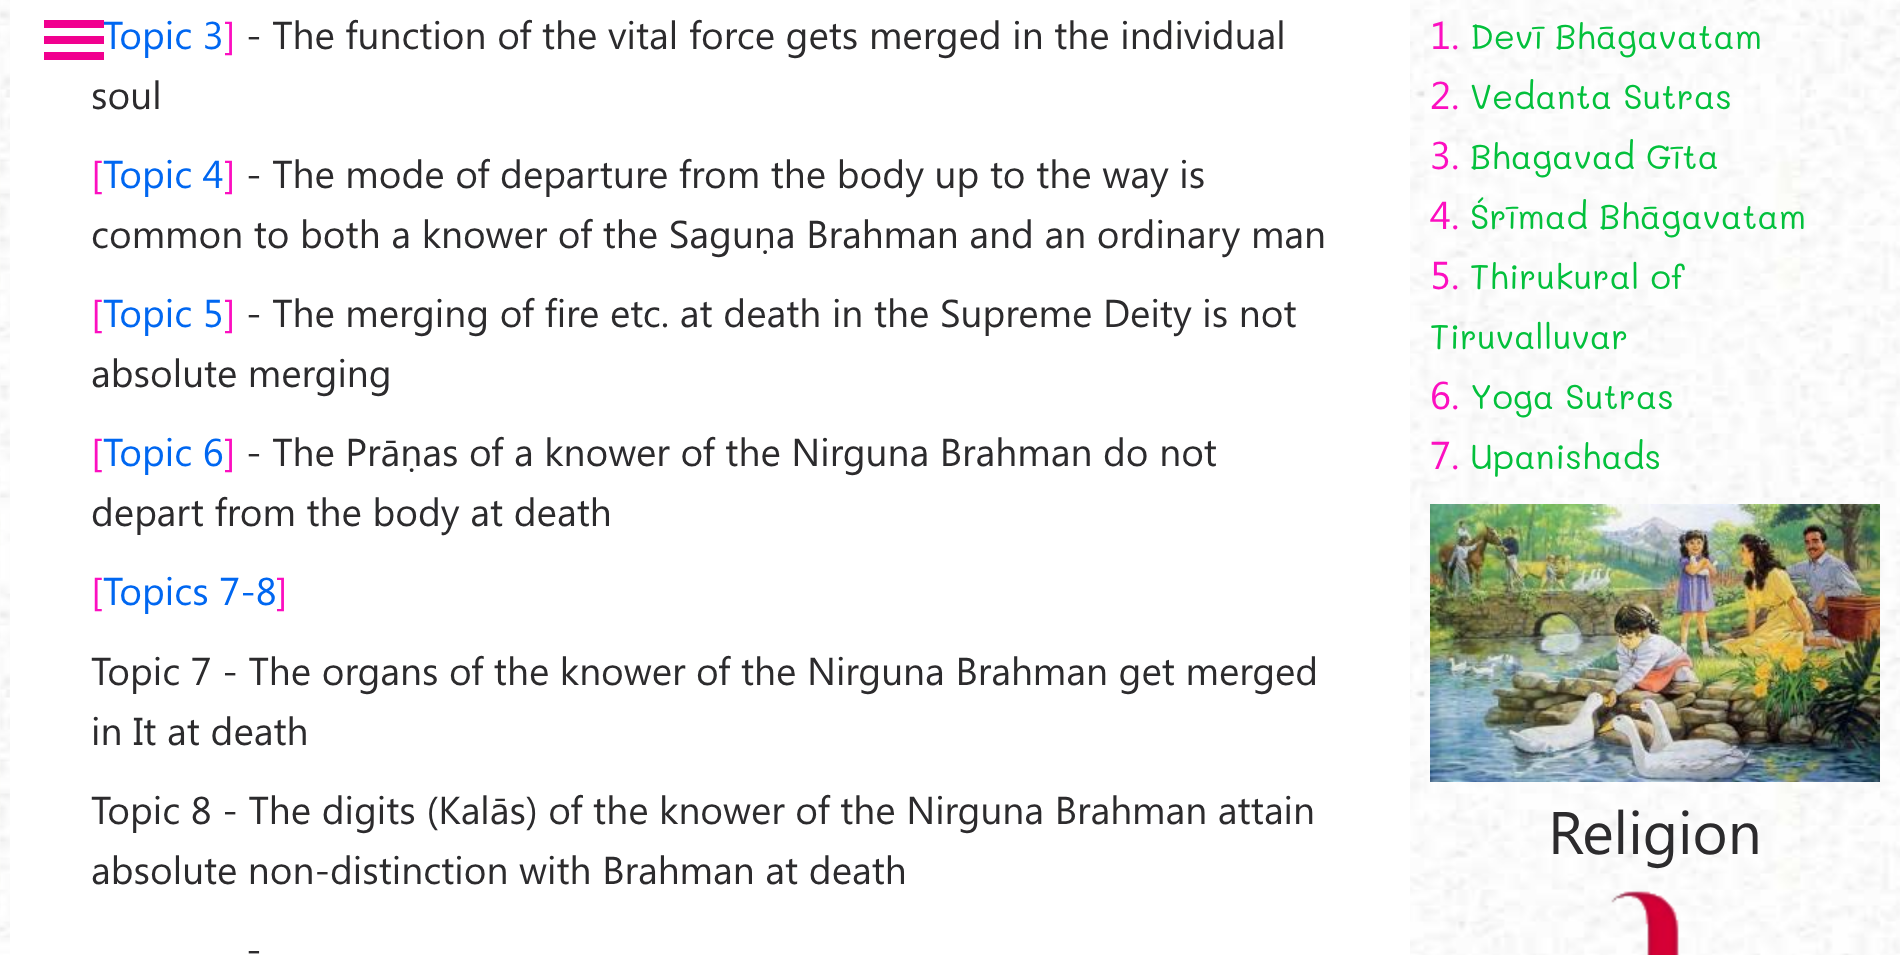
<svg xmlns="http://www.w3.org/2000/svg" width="1900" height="955">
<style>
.a{font:38.8px Segoe UI;fill:#0067f1}
.b{font:38.8px Segoe UI;fill:#fc0fc0}
.c{font:38.8px Segoe UI;fill:#2c2b2d}
.d{font:34.4px Mali;fill:#03c03c}
.e{font:60px Segoe UI;fill:#2c2b2d}
</style>
<rect width="100%" height="100%" fill="#fff"/>
<image href="1.png" x="0" y="0" width="1900" height="955"/>
<path fill="#fff" d="M10 0h1400v955H10z"/>
<image href="2.png" x="1430" y="504" width="450" height="278"/>
<image href="3.png" x="1611" y="891" width="68" height="64"/>
<text class="a" x="103" y="49">Topic 3</text>
<path fill="#f1008f" d="M44 36h60v8H44z"/>
<path fill="#f1008f" d="M44 52h60v8H44z"/>
<path fill="#f1008f" d="M44 20h60v8H44z"/>
<text class="b" x="224" y="49">]</text>
<text class="c" x="246" y="49">- The function of the vital force gets merged in the individual</text>
<text class="c" x="91" y="109">soul</text>
<text class="b" x="91" y="188">[</text>
<text class="a" x="103" y="188">Topic 4</text>
<text class="b" x="224" y="188">]</text>
<text class="c" x="246" y="188">- The mode of departure from the body up to the way is</text>
<text class="c" x="91" y="248">common to both a knower of the Saguṇa Brahman and an ordinary man</text>
<text class="b" x="91" y="327">[</text>
<text class="a" x="103" y="327">Topic 5</text>
<text class="b" x="224" y="327">]</text>
<text class="c" x="246" y="327">- The merging of fire etc. at death in the Supreme Deity is not</text>
<text class="c" x="91" y="387">absolute merging</text>
<text class="b" x="91" y="466">[</text>
<text class="a" x="103" y="466">Topic 6</text>
<text class="b" x="224" y="466">]</text>
<text class="c" x="246" y="466">- The Prāṇas of a knower of the Nirguna Brahman do not</text>
<text class="c" x="91" y="526">depart from the body at death</text>
<text class="b" x="91" y="605">[</text>
<text class="a" x="103" y="605">Topics 7-8</text>
<text class="b" x="276" y="605">]</text>
<text class="c" x="91" y="685">Topic 7 - The organs of the knower of the Nirguna Brahman get merged</text>
<text class="c" x="91" y="745">in It at death</text>
<text class="c" x="91" y="824">Topic 8 - The digits (Kalās) of the knower of the Nirguna Brahman attain</text>
<text class="c" x="91" y="884">absolute non-distinction with Brahman at death</text>
<text class="c" x="246" y="963">-</text>
<text class="b" x="1430" y="49">1.</text>
<text class="d" x="1470" y="49">Devī Bhāgavatam</text>
<text class="b" x="1430" y="109">2.</text>
<text class="d" x="1470" y="109">Vedanta Sutras</text>
<text class="b" x="1430" y="169">3.</text>
<text class="d" x="1470" y="169">Bhagavad Gīta</text>
<text class="b" x="1430" y="229">4.</text>
<text class="d" x="1470" y="229">Śrīmad Bhāgavatam</text>
<text class="b" x="1430" y="289">5.</text>
<text class="d" x="1470" y="289">Thirukural of</text>
<text class="d" x="1430" y="349">Tiruvalluvar</text>
<text class="b" x="1430" y="409">6.</text>
<text class="d" x="1470" y="409">Yoga Sutras</text>
<text class="b" x="1430" y="469">7.</text>
<text class="d" x="1470" y="469">Upanishads</text>
<text class="e" x="1548" y="854">Religion</text>
</svg>
